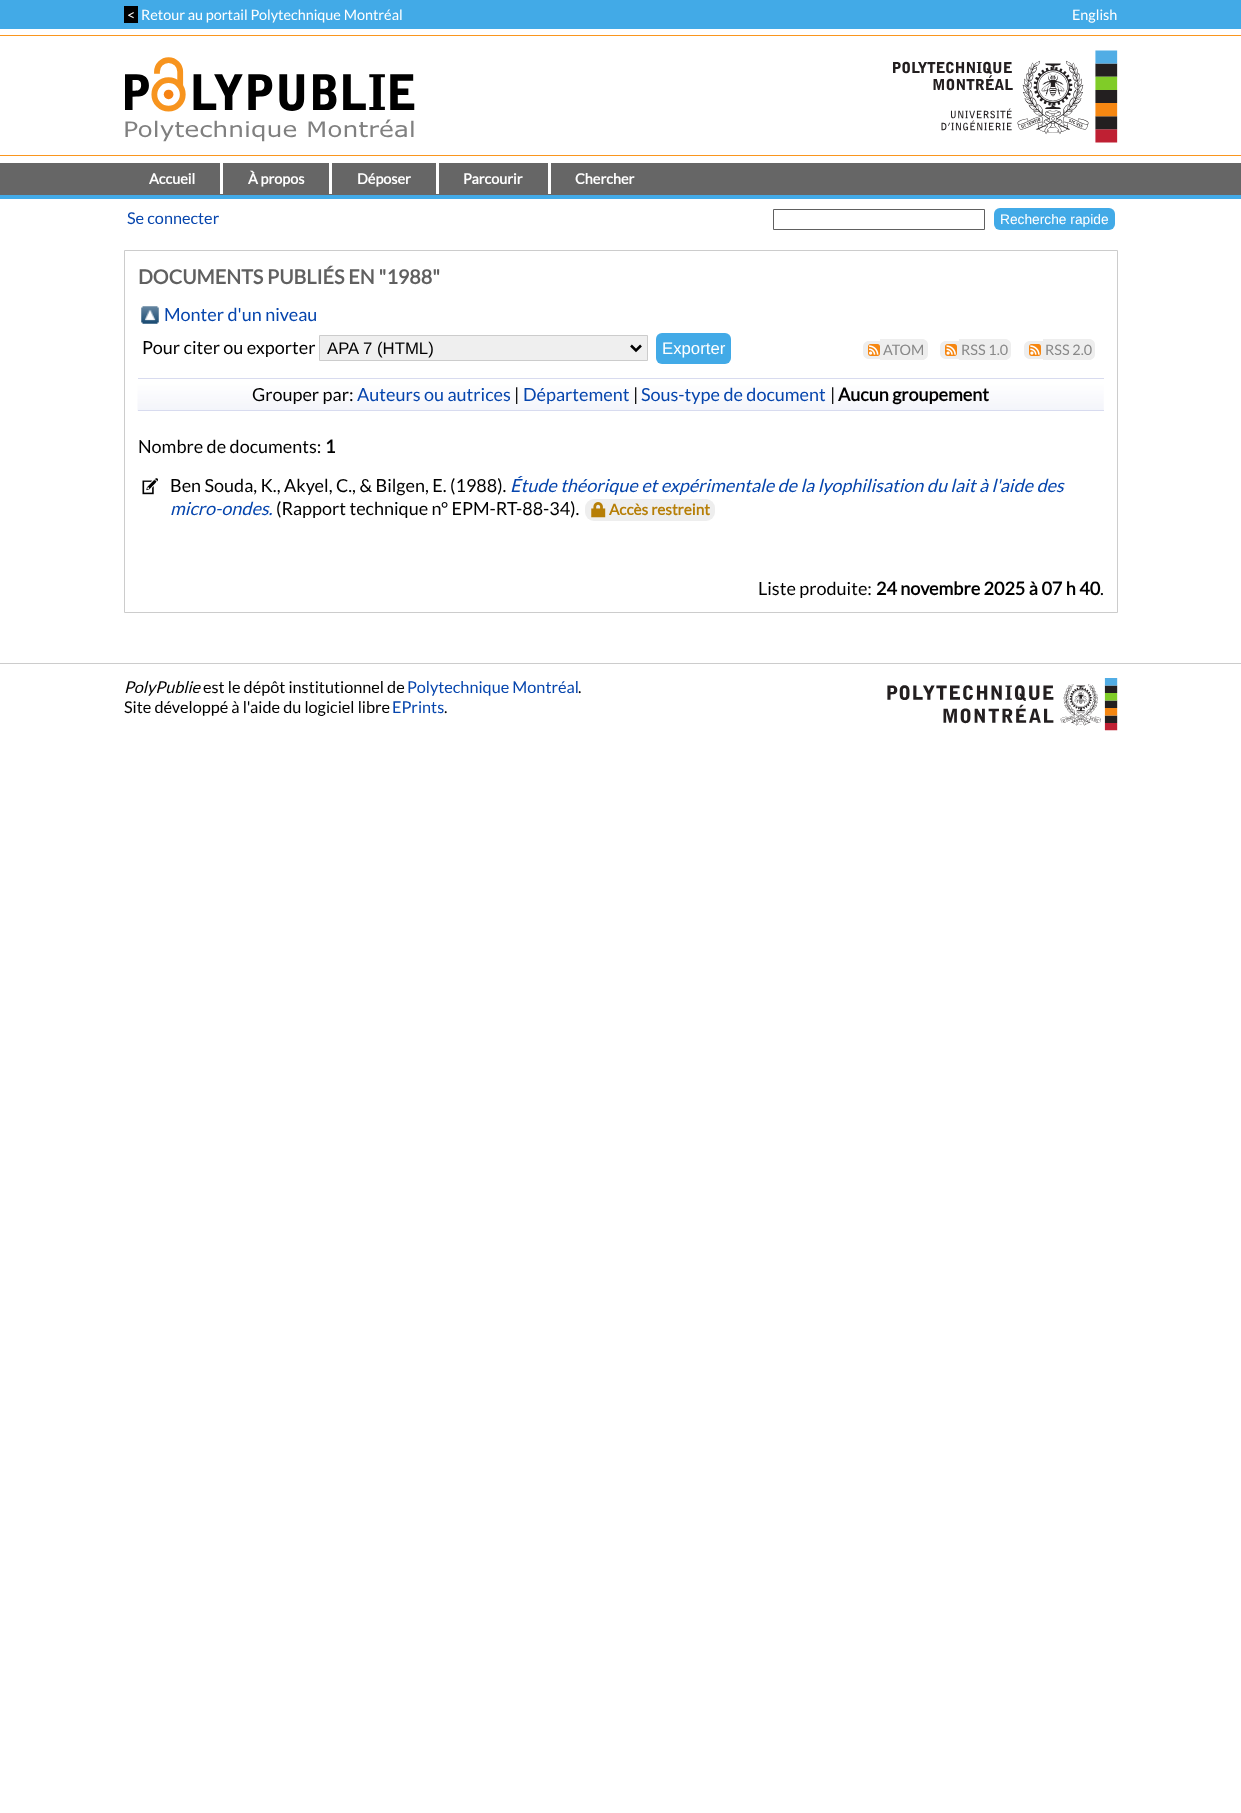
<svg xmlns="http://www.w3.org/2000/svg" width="1241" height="1813">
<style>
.a{font:14.4px Lato;fill:#fff}
.b{font:bold 14.4px Lato;fill:#fff}
.c{font:16.25px Lato;fill:#0645ad}
.d{font:13.75px Liberation Sans;fill:#fff}
.e{font:bold 19.75px Lato;fill:#606060}
.f{font:18px Lato;fill:#0645ad}
.g{font:18px Lato;fill:#000}
.h{font:16.75px Liberation Sans;fill:#000}
.i{font:16.75px Liberation Sans;fill:#fff}
.j{font:14.4px Lato;fill:#888}
.k{font:bold 18px Lato;fill:#000}
.l{font:italic 18px Lato;fill:#0645ad}
.m{font:bold 15.25px Lato;fill:#b67e06}
.n{font:italic 16.25px Lato;fill:#000}
.o{font:16.25px Lato;fill:#000}
</style>
<rect width="100%" height="100%" fill="#fff"/>
<path fill="#42aae7" d="M0 0h1241v29H0z"/>
<path fill="#000" d="M124 6h14v17H124z"/>
<path fill="#fa961e" d="M0 35h1241v1H0z"/>
<path fill="#fa961e" d="M0 155h1241v1H0z"/>
<image href="1.png" x="125" y="57" width="290" height="85"/>
<image href="2.png" x="893" y="50" width="225" height="93"/>
<path fill="#666" d="M0 163h1241v32H0z"/>
<path fill="#42aae7" d="M0 195h1241v4H0z"/>
<path fill="#fff" d="M220 163h3v31H220z"/>
<path fill="#fff" d="M329 163h3v31H329z"/>
<path fill="#fff" d="M436 163h3v31H436z"/>
<path fill="#fff" d="M548 163h3v31H548z"/>
<path fill="none" stroke="#606060" d="M773.5 209.5h211v20H773.5z"/>
<rect fill="#42aae7" x="994" y="208" width="121" height="22" rx="6"/>
<path fill="none" stroke="#ccc" d="M124.5 250.5h993v362H124.5z"/>
<image href="3.png" x="141" y="306" width="18" height="18"/>
<path fill="#efefef" stroke="#ccc" d="M319.5 335.5h328v25H319.5z"/>
<path fill="none" stroke="#000" stroke-width="2.5" d="M631 345.5l5 5l5-5"/>
<rect fill="#42aae7" x="656" y="333" width="75" height="31" rx="6"/>
<path fill="#eee" d="M869 341h11v18h-11c-3.5 0-6-2.5-6-6v-6c0-3.5 2.5-6 6-6z"/>
<image href="4.png" x="868" y="344" width="12" height="12"/>
<path fill="#eee" d="M880 339h4v21H880z"/>
<path fill="#eee" d="M884 339h38c3.5 0 6 2.5 6 6v9c0 3.5-2.5 6-6 6h-38z"/>
<path fill="#eee" d="M946 341h13v18h-13c-3.5 0-6-2.5-6-6v-6c0-3.5 2.5-6 6-6z"/>
<image href="5.png" x="945" y="344" width="12" height="12"/>
<path fill="#eee" d="M959 339h2v21H959z"/>
<path fill="#eee" d="M961 339h44c3.5 0 6 2.5 6 6v9c0 3.5-2.5 6-6 6h-44z"/>
<path fill="#eee" d="M1030 341h13v18h-13c-3.5 0-6-2.5-6-6v-6c0-3.5 2.5-6 6-6z"/>
<image href="6.png" x="1029" y="344" width="12" height="12"/>
<path fill="#eee" d="M1043 339h2v21H1043z"/>
<path fill="#eee" d="M1045 339h44c3.5 0 6 2.5 6 6v9c0 3.5-2.5 6-6 6h-44z"/>
<image href="7.png" x="137" y="378" width="967" height="33"/>
<path fill="#d8dbef" d="M138 378h966v1H138z"/>
<path fill="#d8dbef" d="M138 410h966v1H138z"/>
<image href="8.png" x="142" y="478" width="16" height="17"/>
<rect fill="#eee" x="585" y="499" width="130" height="22" rx="9"/>
<image href="9.png" x="591" y="502" width="15" height="16"/>
<path fill="#ccc" d="M0 663h1241v1H0z"/>
<image href="10.png" x="887" y="678" width="231" height="53"/>
<text class="a" x="127" y="20">&lt;</text>
<text class="a" x="141" y="20">Retour au portail Polytechnique Montréal</text>
<text class="a" x="1072" y="20">English</text>
<text class="b" x="149" y="184">Accueil</text>
<text class="b" x="248" y="184">À propos</text>
<text class="b" x="357" y="184">Déposer</text>
<text class="b" x="463" y="184">Parcourir</text>
<text class="b" x="575" y="184">Chercher</text>
<text class="c" x="127" y="224">Se connecter</text>
<text class="d" x="1000" y="224">Recherche rapide</text>
<text class="e" x="138" y="284">DOCUMENTS PUBLIÉS EN "1988"</text>
<text class="f" x="164" y="321">Monter d'un niveau</text>
<text class="g" x="142" y="354">Pour citer ou exporter</text>
<text class="h" x="327" y="354">APA 7 (HTML)</text>
<text class="i" x="662" y="354">Exporter</text>
<text class="j" x="883" y="355">ATOM</text>
<text class="j" x="961" y="355">RSS 1.0</text>
<text class="j" x="1045" y="355">RSS 2.0</text>
<text class="g" x="252" y="401">Grouper par:</text>
<text class="f" x="357" y="401">Auteurs ou autrices</text>
<text class="g" x="514" y="401">|</text>
<text class="f" x="523" y="401">Département</text>
<text class="g" x="633" y="401">|</text>
<text class="f" x="641" y="401">Sous-type de document</text>
<text class="g" x="830" y="401">|</text>
<text class="k" x="838" y="401">Aucun groupement</text>
<text class="g" x="138" y="453">Nombre de documents:</text>
<text class="k" x="325" y="453">1</text>
<text class="g" x="170" y="492">Ben Souda, K., Akyel, C., &amp; Bilgen, E. (1988).</text>
<text class="l" x="510" y="492">Étude théorique et expérimentale de la lyophilisation du lait à l'aide des</text>
<text class="l" x="170" y="515">micro-ondes.</text>
<text class="g" x="276" y="515">(Rapport technique n° EPM-RT-88-34).</text>
<text class="m" x="609" y="515">Accès restreint</text>
<text class="g" x="758" y="595">Liste produite:</text>
<text class="k" x="876" y="595">24 novembre 2025 à 07 h 40</text>
<text class="g" x="1100" y="595">.</text>
<text class="n" x="124" y="693">PolyPublie</text>
<text class="o" x="203" y="693">est le dépôt institutionnel de</text>
<text class="c" x="407" y="693">Polytechnique Montréal</text>
<text class="o" x="578" y="693">.</text>
<text class="o" x="124" y="713">Site développé à l'aide du logiciel libre</text>
<text class="c" x="392" y="713">EPrints</text>
<text class="o" x="444" y="713">.</text>
</svg>
